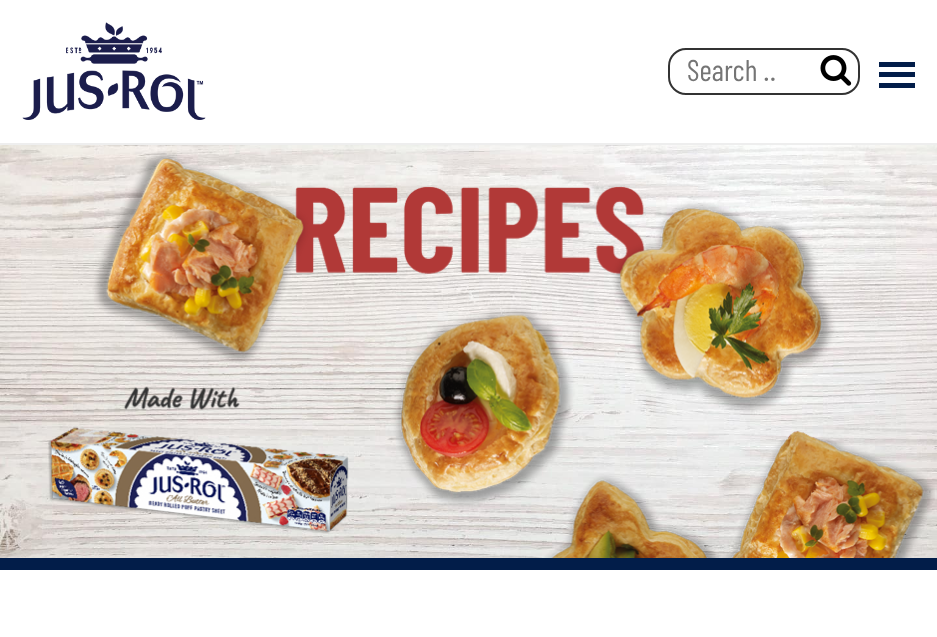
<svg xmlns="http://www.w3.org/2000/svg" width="937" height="637">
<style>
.a{font:30px Barlow Condensed;fill:#757575}
</style>
<defs>
<clipPath id="clip1"><path d="M687 51h90v36H687z"/></clipPath>
</defs>
<rect width="100%" height="100%" fill="#fff"/>
<path fill="#eee" d="M0 143h937v2H0z"/>
<image href="1.png" x="22" y="22" width="184" height="98"/>
<rect fill="none" stroke="#333" stroke-width="2" x="669" y="49" width="190" height="45" rx="17"/>
<image href="2.png" x="820" y="55" width="32" height="31"/>
<path fill="#021d49" d="M879 62h36v5H879z"/>
<path fill="#021d49" d="M879 72h36v5H879z"/>
<path fill="#021d49" d="M879 83h36v5H879z"/>
<image href="3.png" x="0" y="145" width="937" height="413"/>
<path fill="#021d49" d="M0 558h937v12H0z"/>
<image href="4.png" x="48" y="151" width="887" height="407"/>
<g clip-path="url(#clip1)">
<text class="a" x="687" y="81">Search …</text>
</g>
</svg>
